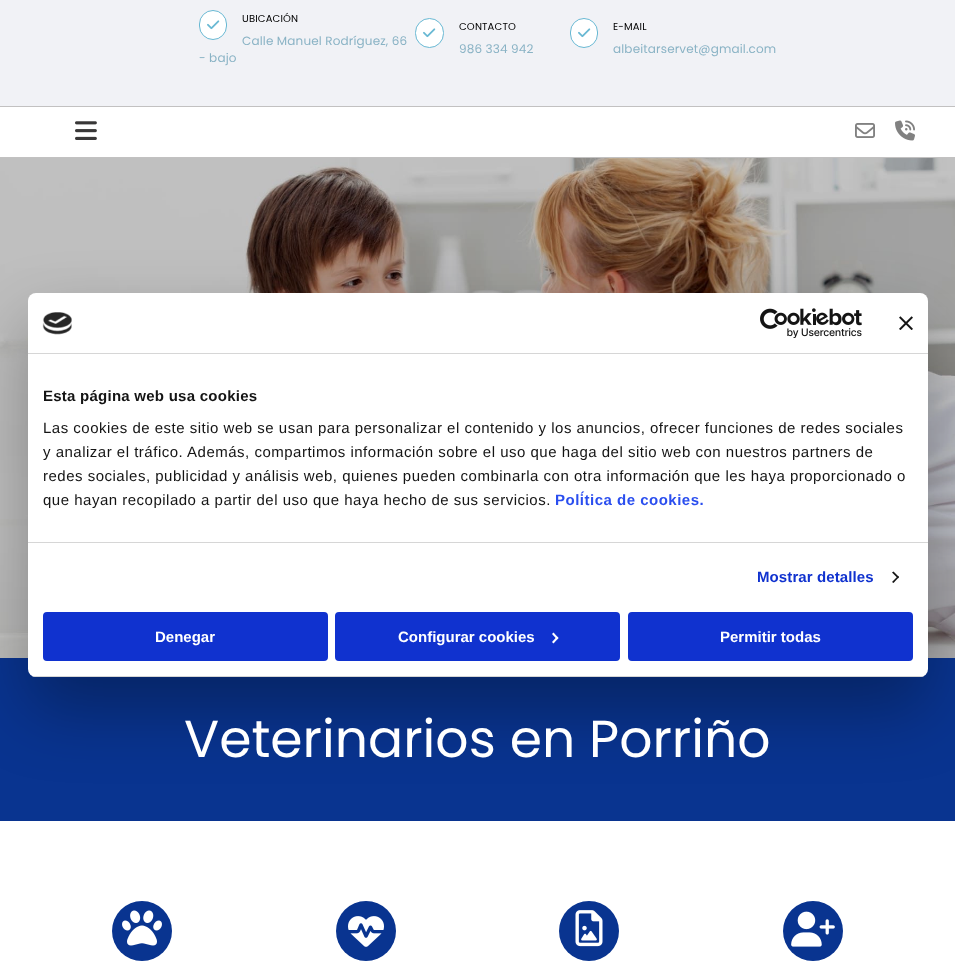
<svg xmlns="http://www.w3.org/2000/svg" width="955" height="970">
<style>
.a{font:10px Poppins;letter-spacing:0.15px;fill:#000}
.b{font:12px Poppins;letter-spacing:0.15px;fill:#8ab3c5}
.c{font:52px Poppins;fill:#fff}
.d{font:bold 15px Liberation Sans;letter-spacing:0.25px;fill:#141414}
.e{font:15px Liberation Sans;letter-spacing:0.5px;fill:#141414}
.f{font:bold 15px Liberation Sans;letter-spacing:0.5px;fill:#2a4eef}
.g{font:bold 15px Liberation Sans;letter-spacing:0.1px;fill:#1032cf}
.h{font:bold 15px Liberation Sans;fill:#fff}
</style>
<defs>
<clipPath id="clip1"><rect x="28" y="293" width="900" height="384" rx="8"/></clipPath>
</defs>
<rect width="100%" height="100%" fill="#f1f2f6"/>
<rect fill="#fff" stroke="#68b8d3" x="199.5" y="10.5" width="27" height="29" rx="13.5"/>
<image href="1.png" x="207" y="20" width="13" height="10"/>
<rect fill="#fff" stroke="#68b8d3" x="415.5" y="18.5" width="28" height="29" rx="14"/>
<image href="1.png" x="423" y="28" width="13" height="10"/>
<rect fill="#fff" stroke="#68b8d3" x="570.5" y="18.5" width="27" height="29" rx="13.5"/>
<image href="1.png" x="578" y="28" width="13" height="10"/>
<path fill="#fff" d="M0 107h955v50H0z"/>
<path fill="#c2c1c1" d="M0 106h955v1H0z"/>
<path fill="#c2c1c1" d="M0 157h955v1H0z"/>
<image href="2.png" x="75" y="121" width="22" height="19"/>
<image href="3.png" x="855" y="123" width="20" height="15"/>
<image href="4.png" x="895" y="120" width="20" height="21"/>
<image href="5.png" x="0" y="158" width="955" height="500"/>
<path fill="#093490" d="M0 658h955v163H0z"/>
<path fill="#fff" d="M0 821h955v149H0z"/>
<circle fill="#093490" cx="142" cy="931" r="30"/>
<image href="6.png" x="122" y="910" width="40" height="36"/>
<circle fill="#093490" cx="366" cy="931" r="30"/>
<image href="7.png" x="348" y="916" width="36" height="31"/>
<circle fill="#093490" cx="589" cy="931" r="30"/>
<image href="8.png" x="575" y="910" width="28" height="37"/>
<circle fill="#093490" cx="813" cy="931" r="30"/>
<image href="9.png" x="791" y="911" width="44" height="36"/>
<rect fill="#0000004d" filter="blur(34px)" x="28" y="325" width="900" height="384" rx="8"/>
<rect fill="#fff" x="28" y="293" width="900" height="384" rx="8"/>
<path fill="#d6d6d6" d="M28 353h900v1H28z"/>
<image href="10.png" x="42" y="312" width="30" height="23"/>
<image href="11.png" x="760" y="308" width="102" height="30"/>
<image href="12.png" x="899" y="316" width="14" height="14"/>
<path fill="#d6d6d6" d="M28 542h900v1H28z"/>
<path fill="#141414" d="M893.5 571.5l5.5 5.5l-1 1.5l-6-6z"/>
<path fill="#141414" d="M898 576l1 1l-5.5 6l-1.5-1z"/>
<g clip-path="url(#clip1)">
<path fill="#d6d6d6" d="M28 676h900v1H28z"/>
</g>
<rect fill="#1032cf" stroke="#1032cf" stroke-width="2" x="44" y="613" width="283" height="47" rx="3"/>
<rect fill="#1032cf" stroke="#1032cf" stroke-width="2" x="336" y="613" width="283" height="47" rx="3"/>
<path fill="#fff" d="M553.5 632.5l5 5.5l-1.5 1.5l-5-5.5z"/>
<path fill="#fff" d="M557 636.5l1.5 1.5l-5 5.5l-1.5-1.5z"/>
<rect fill="#1032cf" stroke="#1032cf" stroke-width="2" x="629" y="613" width="283" height="47" rx="3"/>
<text class="a" x="242" y="22">UBICACIÓN</text>
<text class="b" x="242" y="45">Calle Manuel Rodríguez, 66</text>
<text class="b" x="199" y="62">- bajo</text>
<text class="a" x="459" y="30">CONTACTO</text>
<text class="b" x="459" y="53">986 334 942</text>
<text class="a" x="613" y="30">E-MAIL</text>
<text class="b" x="613" y="53">albeitarservet@gmail.com</text>
<text class="c" x="184" y="757">Veterinarios en Porriño</text>
<text class="d" x="43" y="401">Esta página web usa cookies</text>
<text class="e" x="43" y="433">Las cookies de este sitio web se usan para personalizar el contenido y los anuncios, ofrecer funciones de redes sociales</text>
<text class="e" x="43" y="457">y analizar el tráfico. Además, compartimos información sobre el uso que haga del sitio web con nuestros partners de</text>
<text class="e" x="43" y="481">redes sociales, publicidad y análisis web, quienes pueden combinarla con otra información que les haya proporcionado o</text>
<text class="e" x="43" y="505">que hayan recopilado a partir del uso que haya hecho de sus servicios.</text>
<text class="f" x="555" y="505">Política de cookies.</text>
<text class="g" x="757" y="582">Mostrar detalles</text>
<text class="h" x="155" y="642">Denegar</text>
<text class="h" x="398" y="642">Configurar cookies</text>
<text class="h" x="720" y="642">Permitir todas</text>
</svg>
